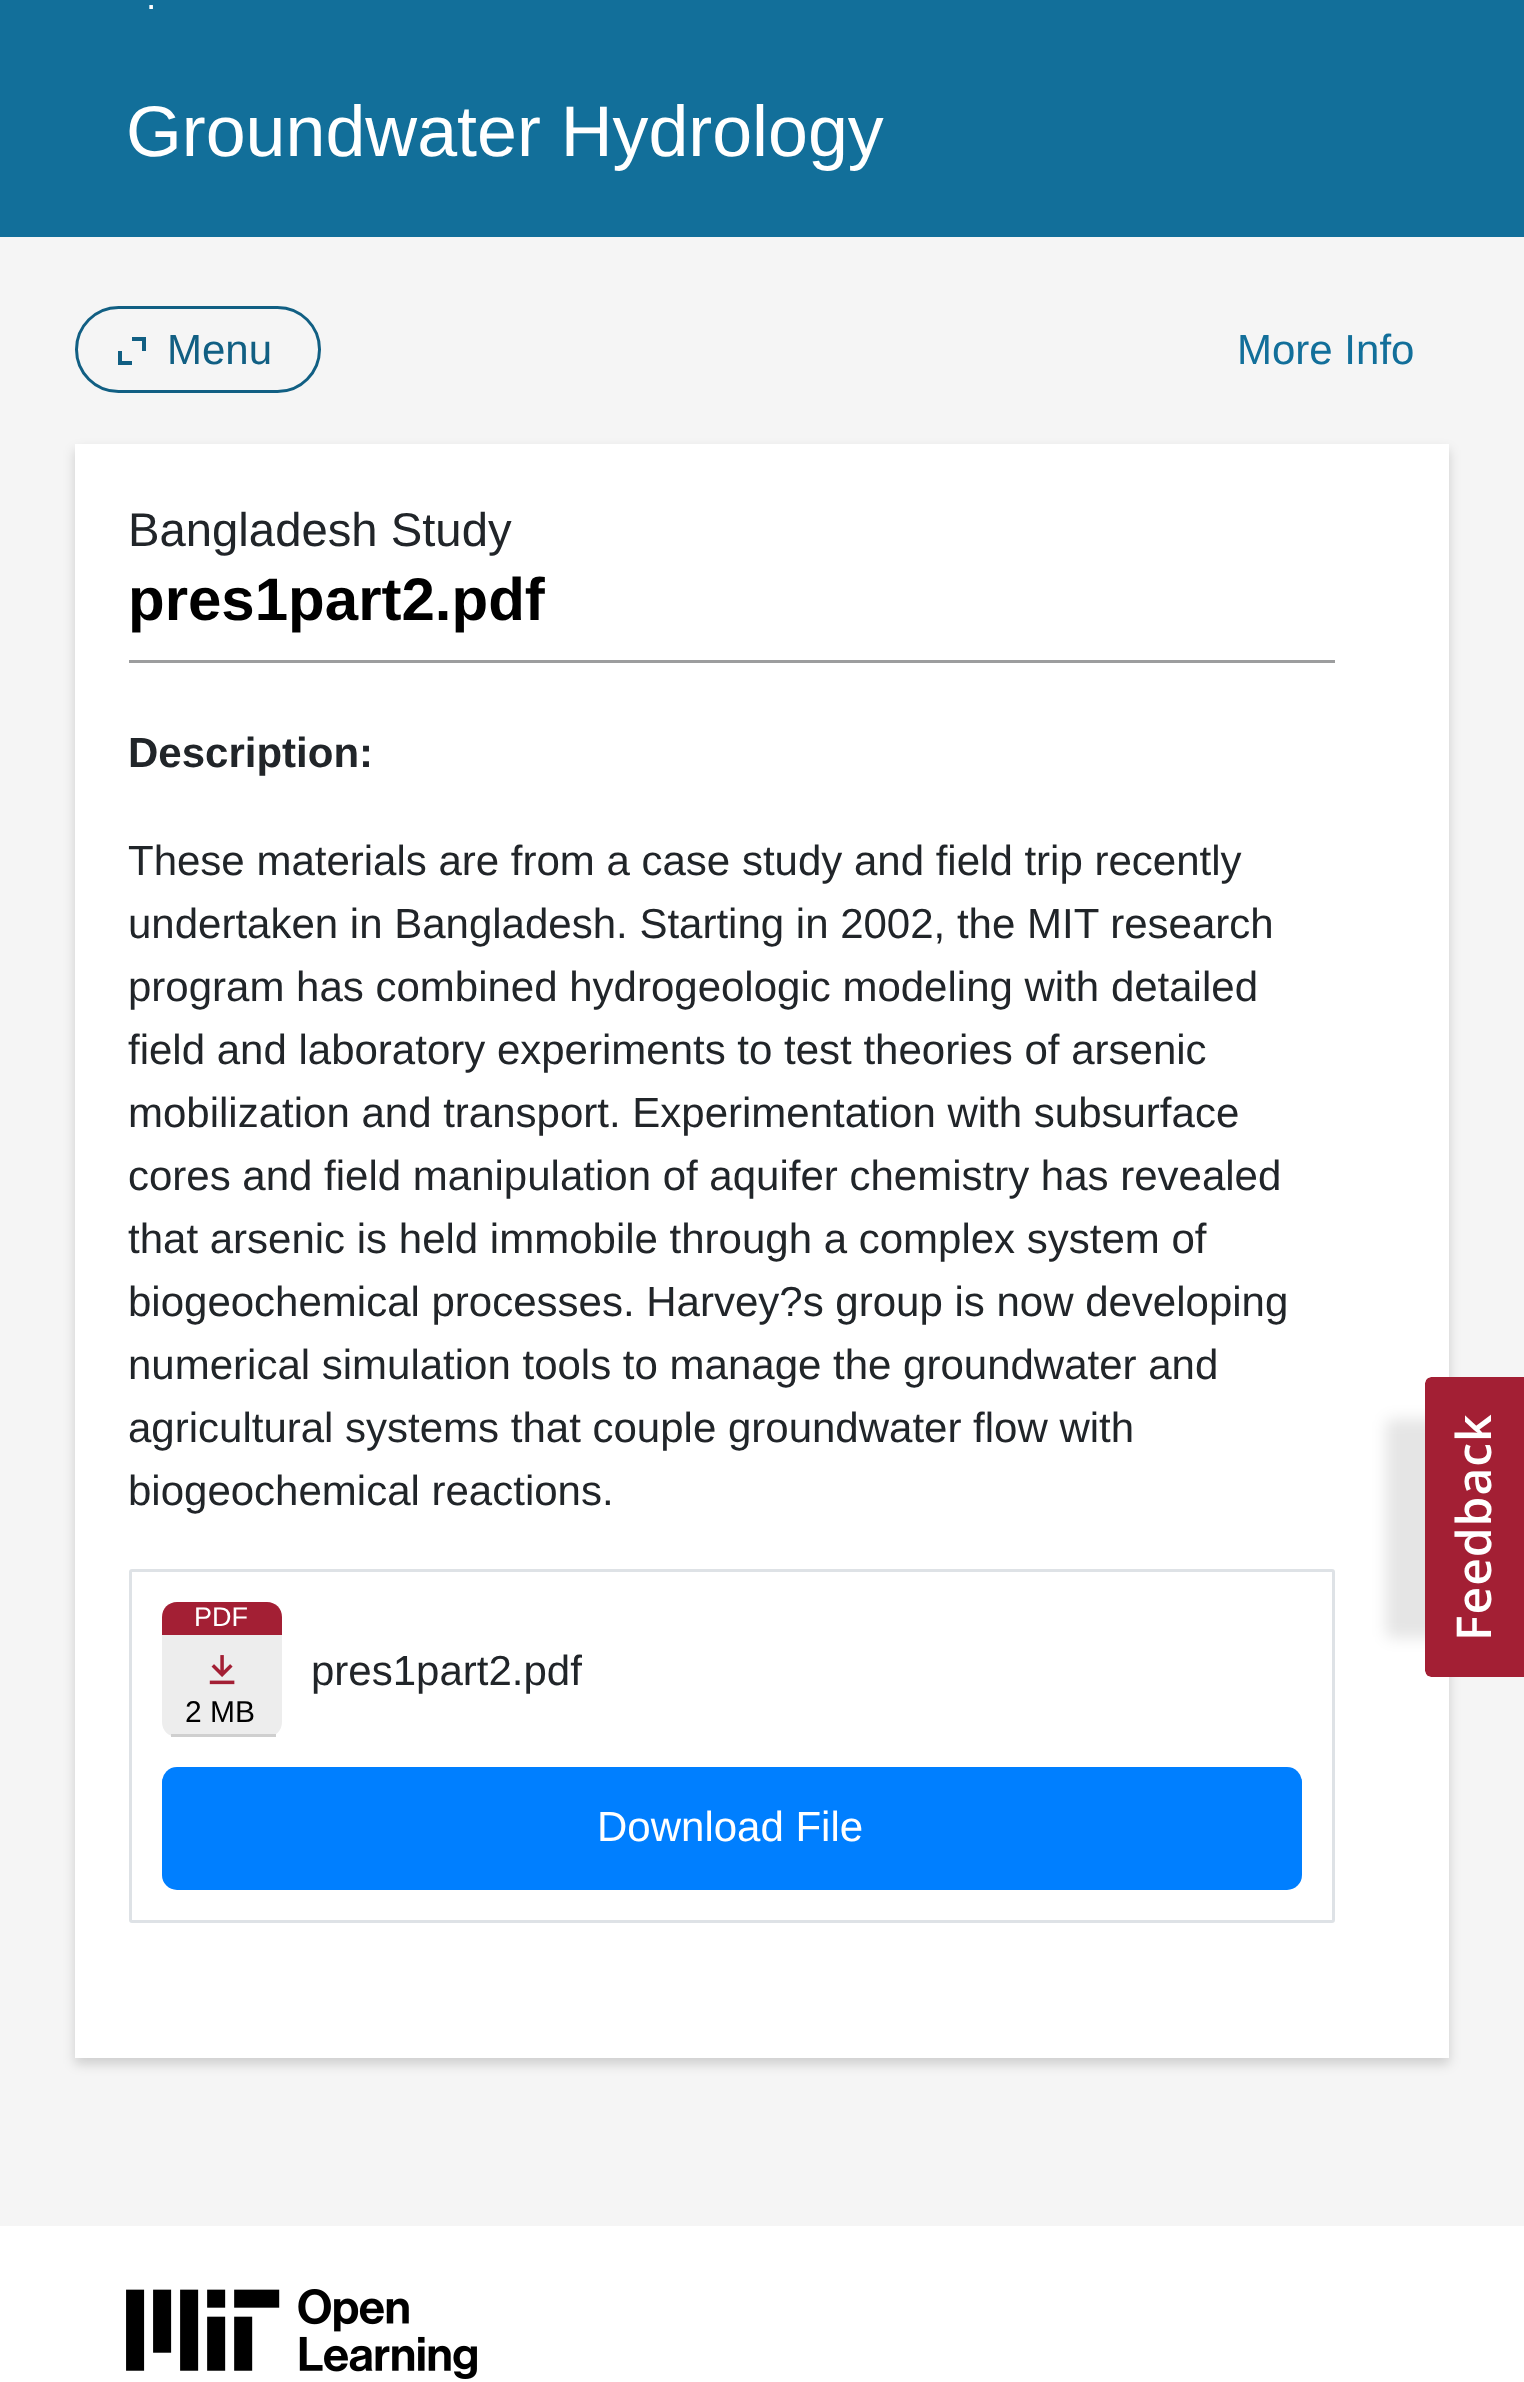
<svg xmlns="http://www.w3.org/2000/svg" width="1524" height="2382">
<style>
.a{font:37px Liberation Sans;fill:#fff}
.b{font:71.75px Liberation Sans;fill:#fff}
.c{font:42px Liberation Sans;fill:#115f83}
.d{font:42px Liberation Sans;fill:#126f9a}
.e{font:47.25px Liberation Sans;fill:#212529}
.f{font:bold 60px Liberation Sans;fill:#000}
.g{font:bold 42px Liberation Sans;fill:#212529}
.h{font:42px Liberation Sans;fill:#212529}
.i{font:27px Liberation Sans;fill:#fff}
.j{font:30px Liberation Sans;fill:#000}
.k{font:42px Liberation Sans;fill:#fff}
</style>
<rect width="100%" height="100%" fill="#f5f5f5"/>
<path fill="#126f9a" d="M0 0h1524v237H0z"/>
<rect fill="none" stroke="#115f83" stroke-width="3" x="76.5" y="307.5" width="243" height="84" rx="42"/>
<image href="1.png" x="118" y="337" width="28" height="28"/>
<path fill="#00000029" filter="blur(6px)" d="M75 450h1374v1614H75z"/>
<path fill="#fff" d="M75 444h1374v1614H75z"/>
<path fill="#9c9d9e" d="M129 660h1206v3H129z"/>
<rect fill="none" stroke="#dee2e6" stroke-width="3" x="130.5" y="1570.5" width="1203" height="351" rx="1.5"/>
<path fill="#a31f34" d="M177 1602h90c8.5 0 15 6.5 15 15v18h-120v-18c0-8.5 6.5-15 15-15z"/>
<path fill="#ededed" d="M162 1635h120v87c0 8.5-6.5 15-15 15h-90c-8.5 0-15-6.5-15-15z"/>
<path fill="#cfcfcf" d="M171 1734h105v3H171z"/>
<image href="2.png" x="209" y="1655" width="26" height="30"/>
<rect fill="#007fff" x="162" y="1767" width="1140" height="123" rx="15"/>
<path fill="#fff" d="M0 2226h1524v156H0z"/>
<image href="3.png" x="126" y="2289" width="351" height="90"/>
<rect fill="#0000001a" filter="blur(7.5px)" x="1386" y="1419" width="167" height="219" rx="6"/>
<image href="4.png" x="1425" y="1377" width="99" height="300"/>
<text class="a" x="146" y="9">.</text>
<text class="b" x="126" y="156">Groundwater Hydrology</text>
<text class="c" x="167" y="364">Menu</text>
<text class="d" x="1237" y="364">More Info</text>
<text class="e" x="128" y="546">Bangladesh Study</text>
<text class="f" x="128" y="620">pres1part2.pdf</text>
<text class="g" x="128" y="767">Description:</text>
<text class="h" x="128" y="875">These materials are from a case study and field trip recently</text>
<text class="h" x="128" y="938">undertaken in Bangladesh. Starting in 2002, the MIT research</text>
<text class="h" x="128" y="1001">program has combined hydrogeologic modeling with detailed</text>
<text class="h" x="128" y="1064">field and laboratory experiments to test theories of arsenic</text>
<text class="h" x="128" y="1127">mobilization and transport. Experimentation with subsurface</text>
<text class="h" x="128" y="1190">cores and field manipulation of aquifer chemistry has revealed</text>
<text class="h" x="128" y="1253">that arsenic is held immobile through a complex system of</text>
<text class="h" x="128" y="1316">biogeochemical processes. Harvey?s group is now developing</text>
<text class="h" x="128" y="1379">numerical simulation tools to manage the groundwater and</text>
<text class="h" x="128" y="1442">agricultural systems that couple groundwater flow with</text>
<text class="h" x="128" y="1505">biogeochemical reactions.</text>
<text class="i" x="194" y="1626">PDF</text>
<text class="j" x="185" y="1722">2 MB</text>
<text class="h" x="311" y="1685">pres1part2.pdf</text>
<text class="k" x="597" y="1841">Download File</text>
</svg>
